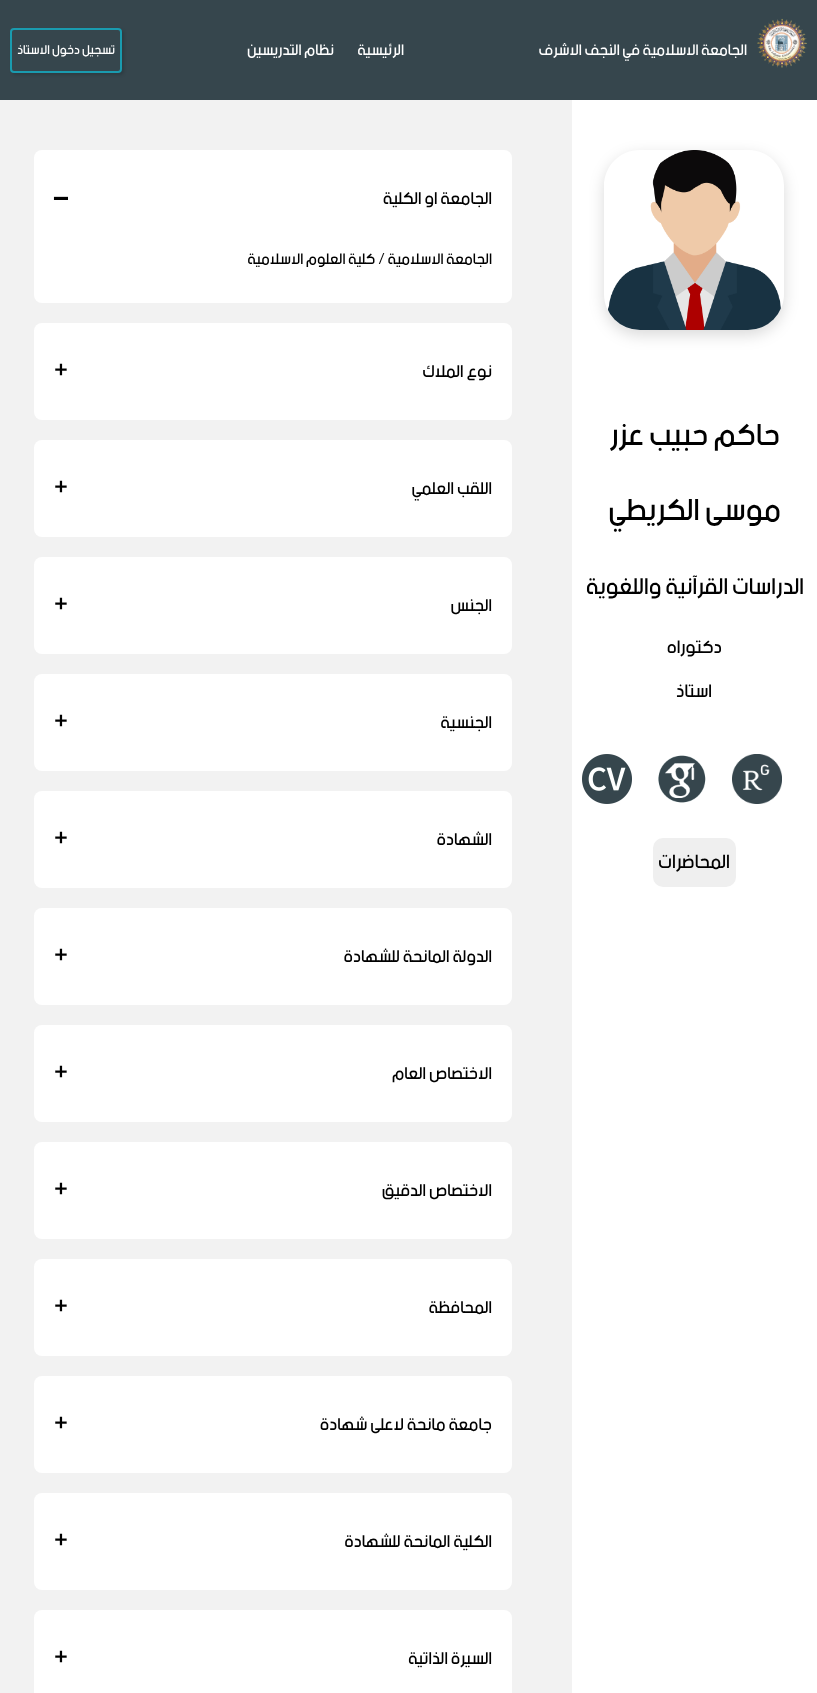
<svg xmlns="http://www.w3.org/2000/svg" width="817" height="1693">
<style>
.a{font:16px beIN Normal;direction:rtl;fill:#fff}
.b{font:13.25px beIN Normal;direction:rtl;fill:#fff}
.c{font:32px beIN Normal;direction:rtl;fill:#000}
.d{font:24px beIN Normal;direction:rtl;fill:#000}
.e{font:19px beIN Normal;direction:rtl;fill:#000}
.f{font:20px beIN Normal;direction:rtl;fill:#000}
.g{font:18px beIN Normal;direction:rtl;fill:#000}
.h{font:bold 24px beIN Normal;fill:#000}
.i{font:16px beIN Normal;direction:rtl;fill:#000}
</style>
<defs>
<clipPath id="clip1"><path d="M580 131h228v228h-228zm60 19h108c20 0 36 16 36 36v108c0 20-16 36-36 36h-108c-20 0-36-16-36-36v-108c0-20 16-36 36-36z" clip-rule="evenodd"/></clipPath>
</defs>
<rect width="100%" height="100%" fill="#fff"/>
<path fill="#36464d" d="M0 0h817v100H0z"/>
<image href="1.png" x="757" y="18" width="50" height="50"/>
<rect fill="#00000026" filter="blur(1.5px)" x="12" y="30" width="112" height="45" rx="4"/>
<rect fill="#36464d" stroke="#1a9baf" stroke-width="2" x="11" y="29" width="110" height="43" rx="3"/>
<g clip-path="url(#clip1)">
<rect fill="#00000026" filter="blur(7.5px)" x="604" y="155" width="180" height="180" rx="36"/>
</g>
<image href="2.png" x="607" y="150" width="174" height="180"/>
<image href="3.png" x="732" y="754" width="50" height="50"/>
<image href="4.png" x="658" y="755" width="48" height="48"/>
<image href="5.png" x="582" y="754" width="50" height="50"/>
<rect fill="#efefef" x="653" y="838" width="83" height="49" rx="10"/>
<path fill="#f2f2f2" d="M0 100h572v1593H0z"/>
<rect fill="#fff" x="34" y="150" width="478" height="153" rx="8"/>
<rect fill="#fff" x="34" y="323" width="478" height="97" rx="8"/>
<rect fill="#fff" x="34" y="440" width="478" height="97" rx="8"/>
<rect fill="#fff" x="34" y="557" width="478" height="97" rx="8"/>
<rect fill="#fff" x="34" y="674" width="478" height="97" rx="8"/>
<rect fill="#fff" x="34" y="791" width="478" height="97" rx="8"/>
<rect fill="#fff" x="34" y="908" width="478" height="97" rx="8"/>
<rect fill="#fff" x="34" y="1025" width="478" height="97" rx="8"/>
<rect fill="#fff" x="34" y="1142" width="478" height="97" rx="8"/>
<rect fill="#fff" x="34" y="1259" width="478" height="97" rx="8"/>
<rect fill="#fff" x="34" y="1376" width="478" height="97" rx="8"/>
<rect fill="#fff" x="34" y="1493" width="478" height="97" rx="8"/>
<rect fill="#fff" x="34" y="1610" width="478" height="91" rx="8"/>
<text class="a" x="747" y="55">الجامعة الاسلامية في النجف الاشرف</text>
<text class="a" x="404" y="55">الرئيسية</text>
<text class="a" x="334" y="55">نظام التدريسين</text>
<text class="b" x="115" y="54">تسجيل دخول الاستاذ</text>
<text class="c" x="780" y="445">حاكم حبيب عزر</text>
<text class="c" x="781" y="520">موسى الكريطي</text>
<text class="d" x="804" y="594">الدراسات القرآنية واللغوية</text>
<text class="e" x="722" y="653">دكتوراه</text>
<text class="e" x="712" y="697">استاذ</text>
<text class="f" x="730" y="868">المحاضرات</text>
<text class="g" x="492" y="204">الجامعة او الكلية</text>
<text class="h" x="54" y="205">–</text>
<text class="i" x="492" y="264">الجامعة الاسلامية / كلية العلوم الاسلامية</text>
<text class="g" x="492" y="377">نوع الملاك</text>
<text class="h" x="54" y="378">+</text>
<text class="g" x="492" y="494">اللقب العلمي</text>
<text class="h" x="54" y="495">+</text>
<text class="g" x="492" y="611">الجنس</text>
<text class="h" x="54" y="612">+</text>
<text class="g" x="492" y="728">الجنسية</text>
<text class="h" x="54" y="729">+</text>
<text class="g" x="492" y="845">الشهادة</text>
<text class="h" x="54" y="846">+</text>
<text class="g" x="492" y="962">الدولة المانحة للشهادة</text>
<text class="h" x="54" y="963">+</text>
<text class="g" x="492" y="1079">الاختصاص العام</text>
<text class="h" x="54" y="1080">+</text>
<text class="g" x="492" y="1196">الاختصاص الدقيق</text>
<text class="h" x="54" y="1197">+</text>
<text class="g" x="492" y="1313">المحافظة</text>
<text class="h" x="54" y="1314">+</text>
<text class="g" x="492" y="1430">جامعة مانحة لاعلى شهادة</text>
<text class="h" x="54" y="1431">+</text>
<text class="g" x="492" y="1547">الكلية المانحة للشهادة</text>
<text class="h" x="54" y="1548">+</text>
<text class="g" x="492" y="1664">السيرة الذاتية</text>
<text class="h" x="54" y="1665">+</text>
</svg>
